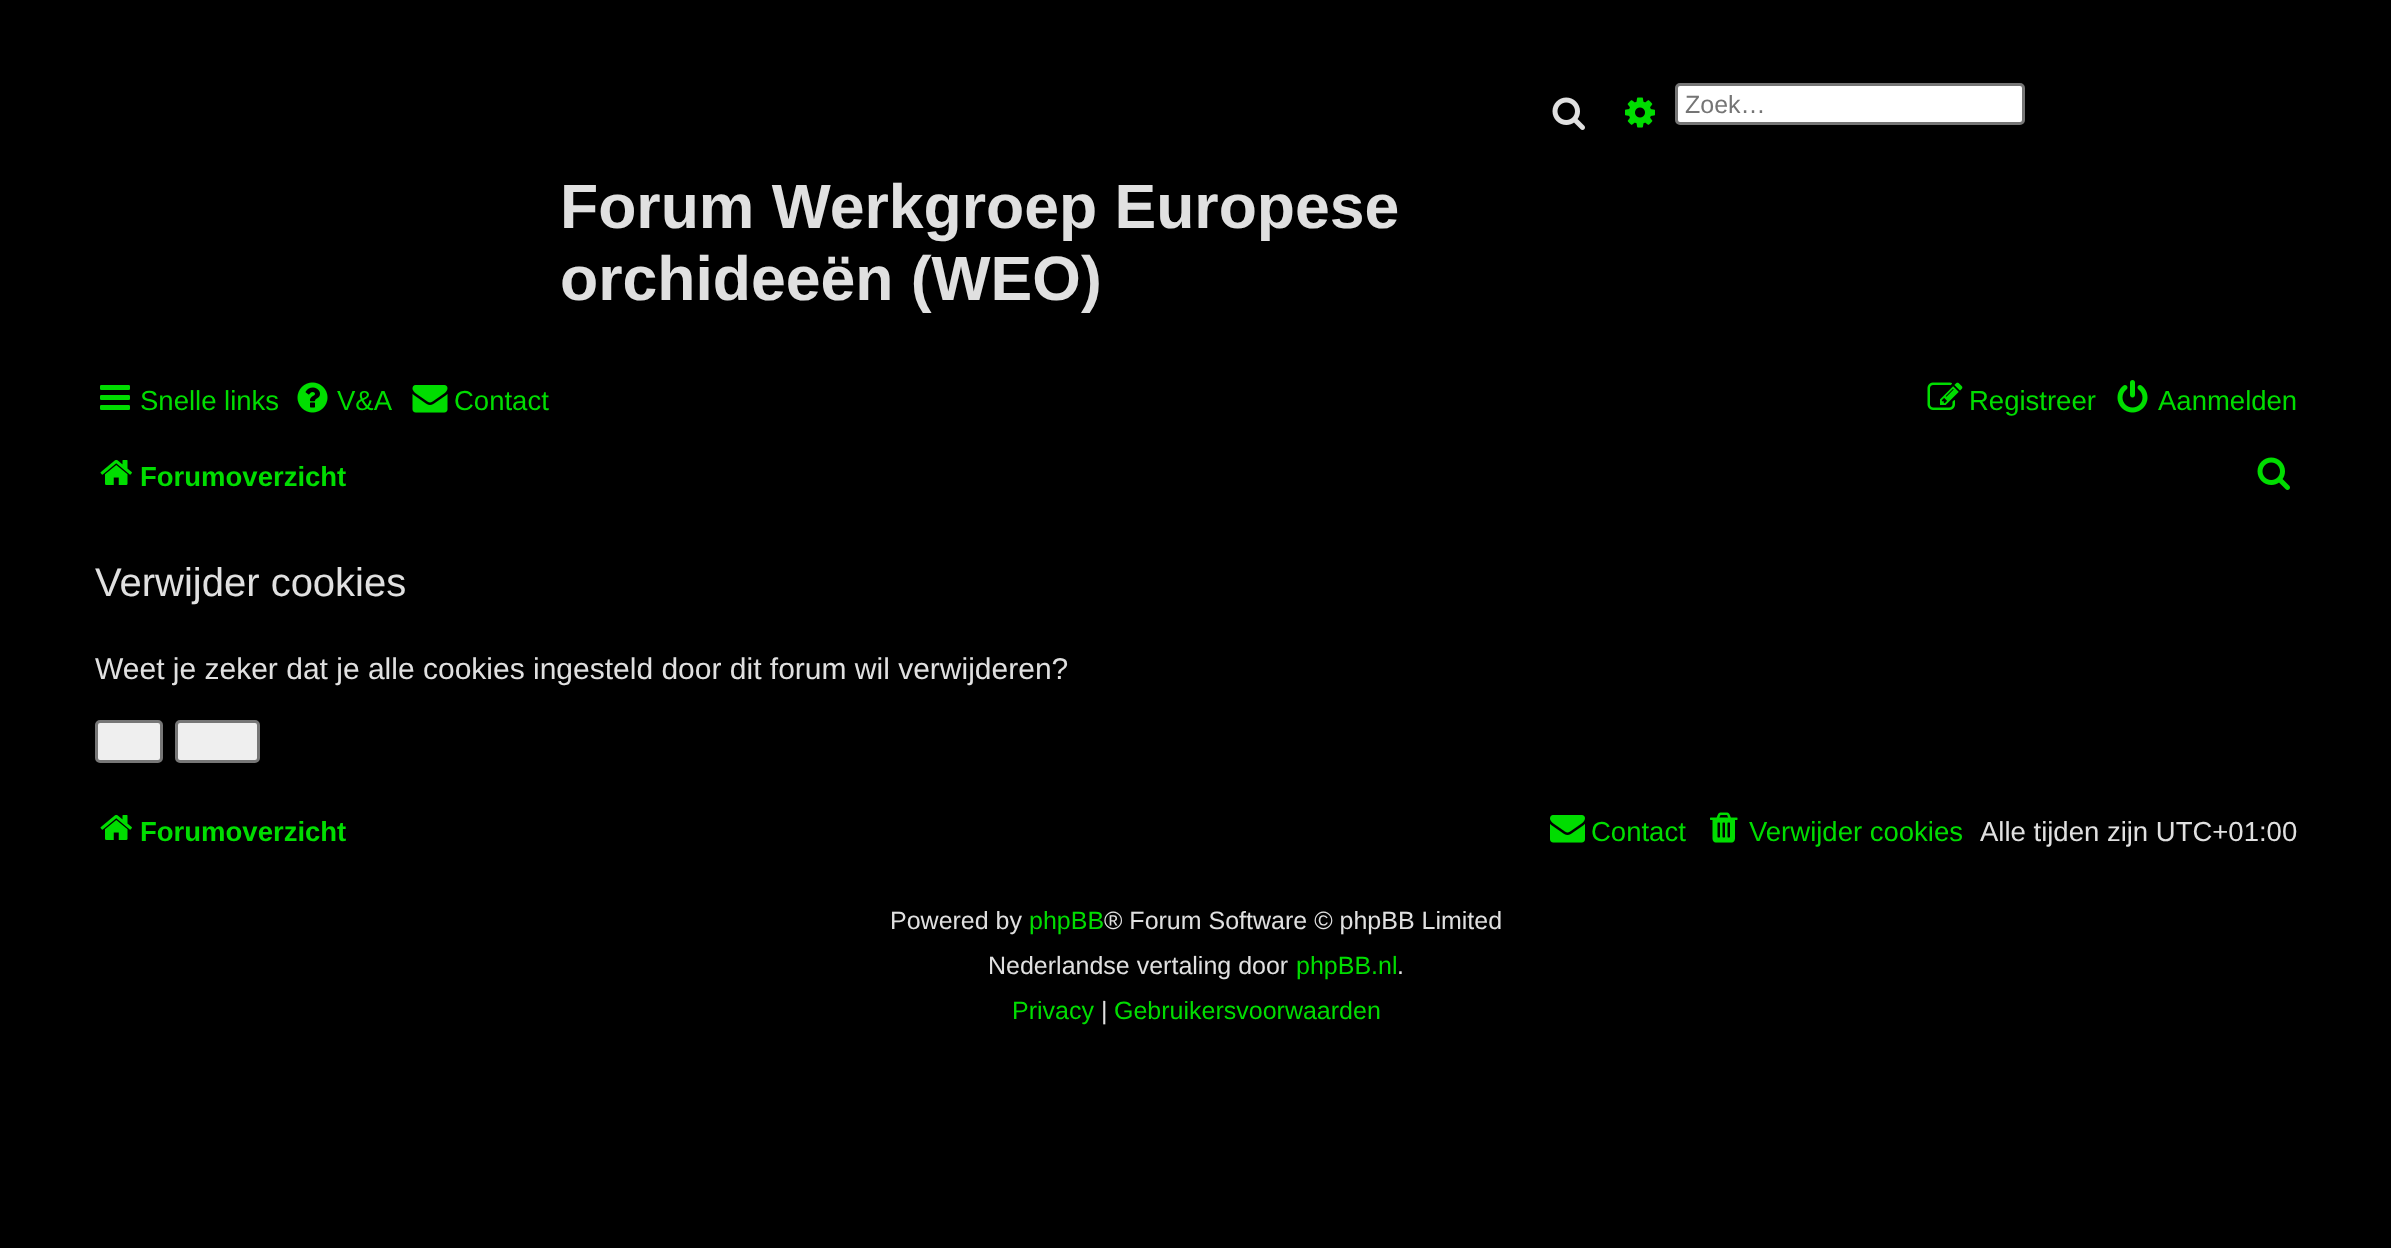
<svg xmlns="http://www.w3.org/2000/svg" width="2391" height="1248">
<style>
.a{font:25px Liberation Sans;fill:#757575}
.b{font:bold 62.5px Liberation Sans;fill:#e0e0e0}
.c{font:27.5px Liberation Sans;fill:#0d0}
.d{font:bold 27.5px Liberation Sans;fill:#0d0}
.e{font:40px Liberation Sans;fill:#e0e0e0}
.f{font:30px Liberation Sans;fill:#e0e0e0}
.g{font:27.5px Liberation Sans;fill:#e0e0e0}
.h{font:25px Liberation Sans;fill:#e0e0e0}
.i{font:25px Liberation Sans;fill:#0d0}
</style>
<rect width="100%" height="100%" fill="#000"/>
<image href="1.png" x="1552" y="97" width="33" height="33"/>
<image href="2.png" x="1625" y="97" width="30" height="31"/>
<rect fill="#fff" stroke="#767676" stroke-width="3" x="1676.5" y="84.5" width="347" height="39" rx="3.5"/>
<image href="3.png" x="100" y="385" width="30" height="25"/>
<image href="4.png" x="297" y="382" width="31" height="31"/>
<image href="5.png" x="412" y="385" width="36" height="28"/>
<image href="6.png" x="1927" y="382" width="36" height="28"/>
<image href="7.png" x="2117" y="380" width="31" height="33"/>
<image href="8.png" x="100" y="459" width="32" height="26"/>
<image href="9.png" x="2257" y="457" width="33" height="33"/>
<rect fill="#efefef" stroke="#767676" stroke-width="3" x="96.5" y="721.5" width="65" height="40" rx="3.5"/>
<rect fill="#efefef" stroke="#767676" stroke-width="3" x="176.5" y="721.5" width="82" height="40" rx="3.5"/>
<image href="8.png" x="100" y="814" width="32" height="26"/>
<image href="10.png" x="1550" y="815" width="35" height="28"/>
<image href="11.png" x="1710" y="812" width="28" height="31"/>
<text class="a" x="1685" y="113">Zoek…</text>
<text class="b" x="560" y="228">Forum Werkgroep Europese</text>
<text class="b" x="560" y="300">orchideeën (WEO)</text>
<text class="c" x="140" y="410">Snelle links</text>
<text class="c" x="337" y="410">V&amp;A</text>
<text class="c" x="454" y="410">Contact</text>
<text class="c" x="1969" y="410">Registreer</text>
<text class="c" x="2158" y="410">Aanmelden</text>
<text class="d" x="140" y="486">Forumoverzicht</text>
<text class="e" x="95" y="596">Verwijder cookies</text>
<text class="f" x="95" y="679">Weet je zeker dat je alle cookies ingesteld door dit forum wil verwijderen?</text>
<text class="d" x="140" y="841">Forumoverzicht</text>
<text class="c" x="1591" y="841">Contact</text>
<text class="c" x="1749" y="841">Verwijder cookies</text>
<text class="g" x="1980" y="841">Alle tijden zijn UTC+01:00</text>
<text class="h" x="890" y="929">Powered by</text>
<text class="i" x="1029" y="929">phpBB</text>
<text class="h" x="1104" y="929">® Forum Software © phpBB Limited</text>
<text class="h" x="988" y="974">Nederlandse vertaling door</text>
<text class="i" x="1296" y="974">phpBB.nl</text>
<text class="h" x="1397" y="974">.</text>
<text class="i" x="1012" y="1019">Privacy</text>
<text class="h" x="1101" y="1019">|</text>
<text class="i" x="1114" y="1019">Gebruikersvoorwaarden</text>
</svg>
